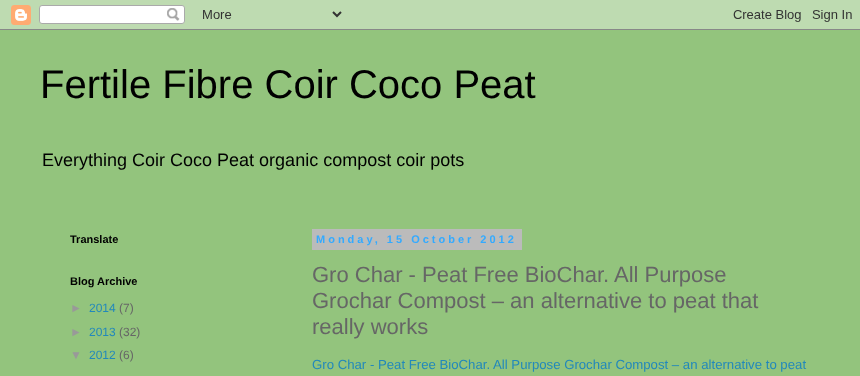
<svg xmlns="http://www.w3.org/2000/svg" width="860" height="376">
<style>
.a{font:40px Liberation Sans;fill:#000}
.b{font:18px Liberation Sans;fill:#000}
.c{font:bold 11px Liberation Sans;fill:#000}
.d{font:12px Liberation Sans;fill:#999}
.e{font:12px Liberation Sans;fill:#28b}
.f{font:12px Liberation Sans;fill:#666}
.g{font:bold 11px Liberation Sans;letter-spacing:3px;fill:#3af}
.h{font:22px Liberation Sans;fill:#666}
.i{font:13.2px Liberation Sans;fill:#28b}
</style>
<rect width="100%" height="100%" fill="#93c47d"/>
<image href="1.png" x="0" y="0" width="860" height="30"/>
<path fill="#bbb" d="M312 229h210v21H312z"/>
<text class="a" x="40" y="98">Fertile Fibre Coir Coco Peat</text>
<text class="b" x="42" y="166">Everything Coir Coco Peat organic compost coir pots</text>
<text class="c" x="70" y="243">Translate</text>
<text class="c" x="70" y="285">Blog Archive</text>
<text class="d" x="70" y="312">►</text>
<text class="e" x="89" y="312">2014</text>
<text class="f" x="119" y="312">(7)</text>
<text class="d" x="70" y="336">►</text>
<text class="e" x="89" y="336">2013</text>
<text class="f" x="119" y="336">(32)</text>
<text class="d" x="70" y="359">▼</text>
<text class="e" x="89" y="359">2012</text>
<text class="f" x="119" y="359">(6)</text>
<text class="g" x="316" y="243">Monday, 15 October 2012</text>
<text class="h" x="312" y="282">Gro Char - Peat Free BioChar. All Purpose</text>
<text class="h" x="312" y="308">Grochar Compost – an alternative to peat that</text>
<text class="h" x="312" y="334">really works</text>
<text class="i" x="312" y="369">Gro Char - Peat Free BioChar. All Purpose Grochar Compost – an alternative to peat</text>
</svg>
